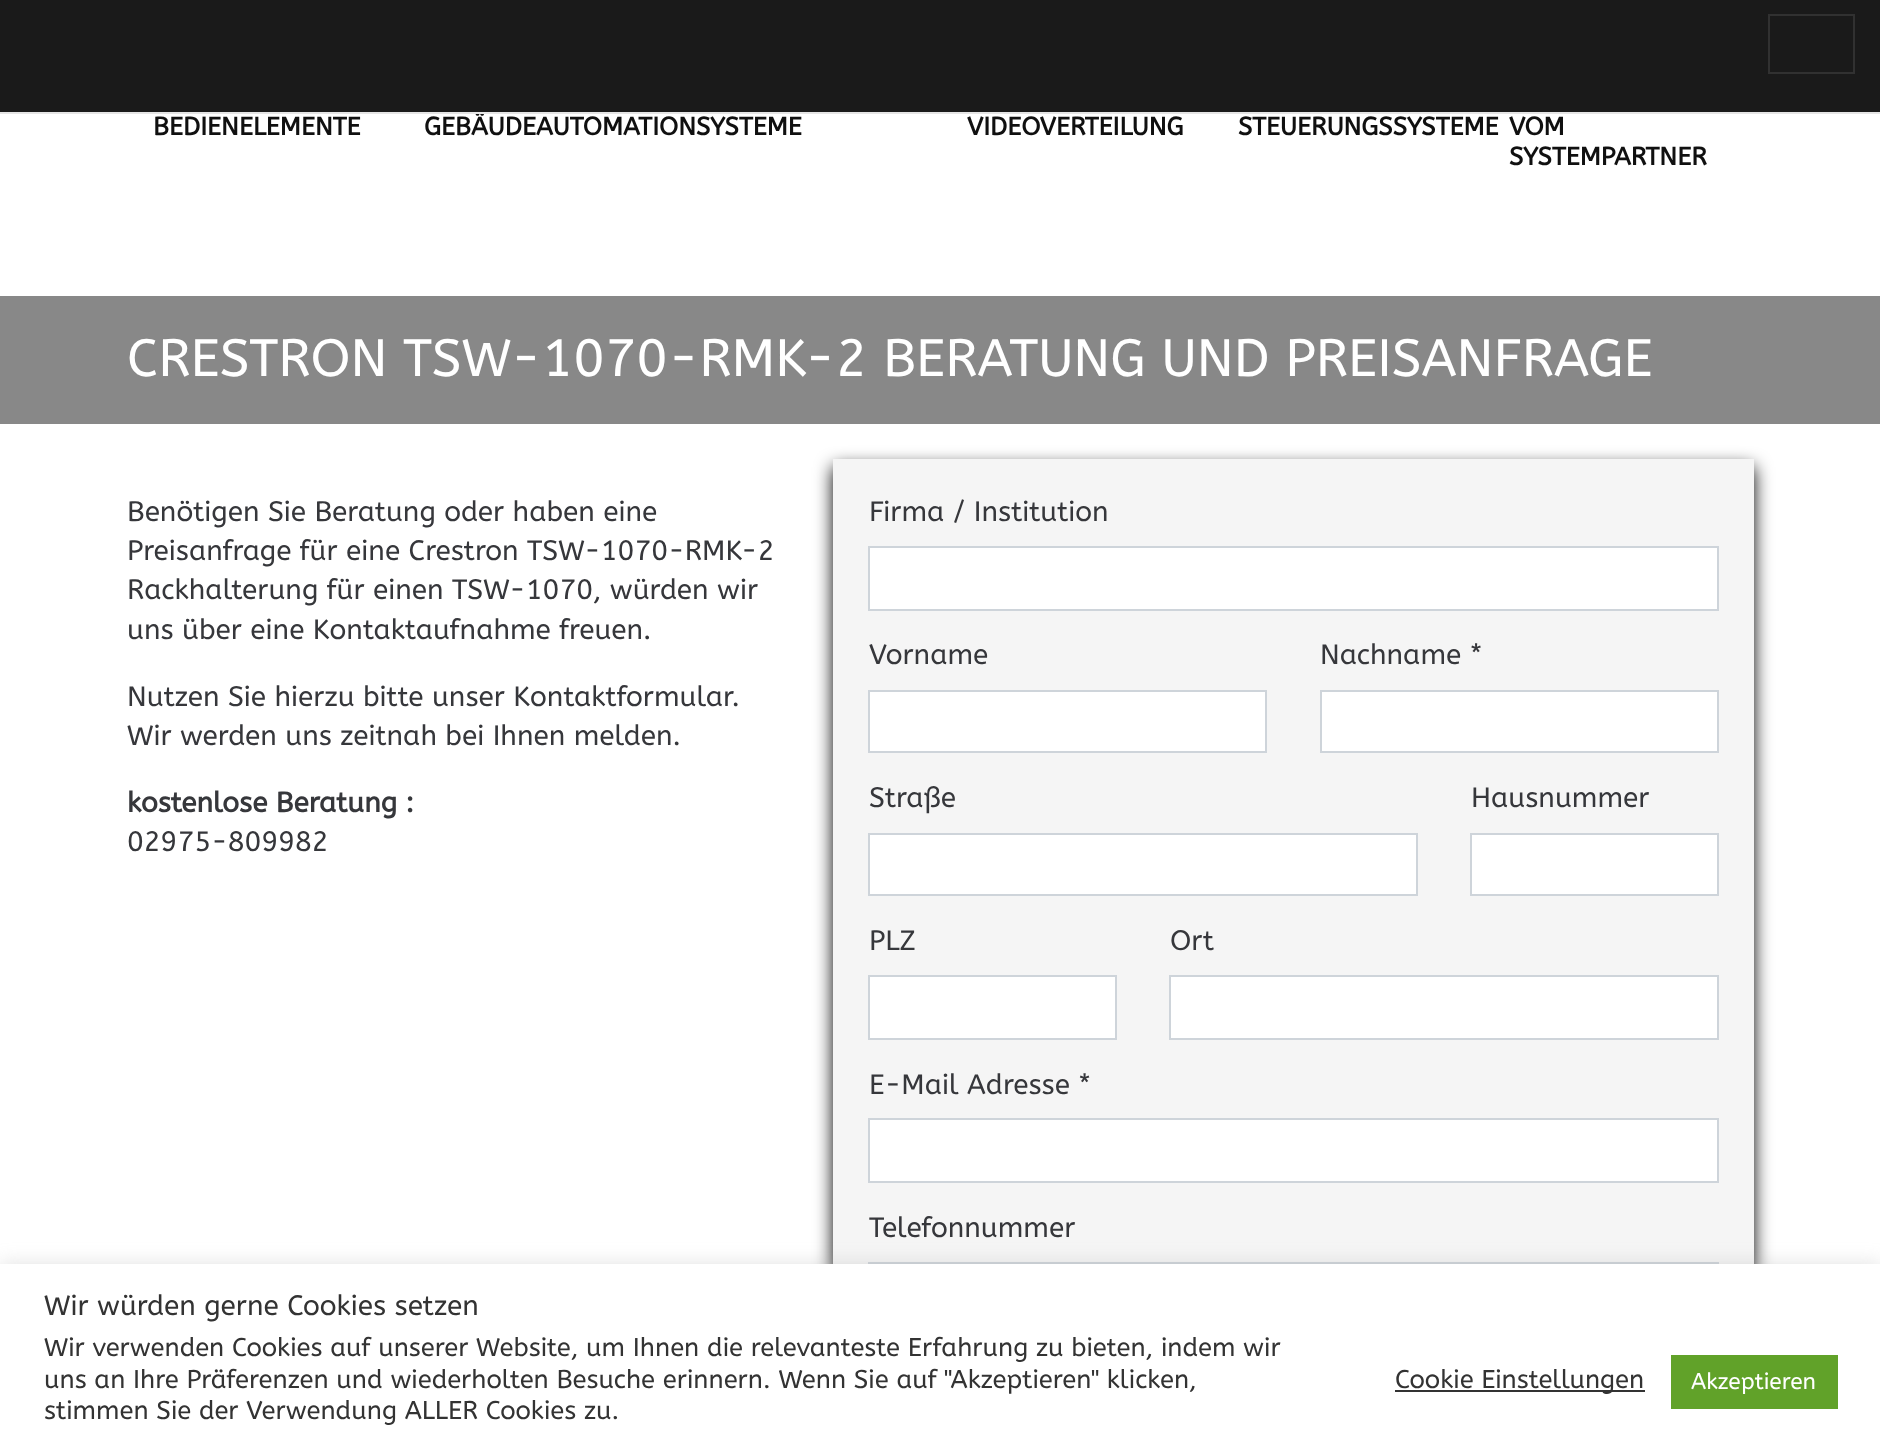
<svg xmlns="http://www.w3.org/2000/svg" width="1880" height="1451">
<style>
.a{font:bold 25.25px ABeeZee;fill:#101010}
.b{font:52.5px ABeeZee;fill:#fff}
.c{font:28px ABeeZee;fill:#36373b}
.d{font:bold 28px ABeeZee;fill:#36373b}
.e{font:28px ABeeZee;fill:#333}
.f{font:25.65px ABeeZee;fill:#333}
.g{font:22.75px ABeeZee;fill:#fff}
</style>
<rect width="100%" height="100%" fill="#fff"/>
<path fill="#1a1a1a" d="M0 0h1880v112H0z"/>
<path fill="none" stroke="#313131" stroke-width="2" d="M1769 15h85v58H1769z"/>
<path fill="#888" d="M0 296h1880v128H0z"/>
<path fill="#000" filter="blur(9px)" d="M833 467h921v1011H833z"/>
<path fill="#f5f5f5" d="M833 459h921v805H833z"/>
<path fill="#fff" stroke="#ced4da" stroke-width="2" d="M869 547h849v63H869z"/>
<path fill="#fff" stroke="#ced4da" stroke-width="2" d="M869 691h397v61H869z"/>
<path fill="#fff" stroke="#ced4da" stroke-width="2" d="M1321 691h397v61H1321z"/>
<path fill="#fff" stroke="#ced4da" stroke-width="2" d="M869 834h548v61H869z"/>
<path fill="#fff" stroke="#ced4da" stroke-width="2" d="M1471 834h247v61H1471z"/>
<path fill="#fff" stroke="#ced4da" stroke-width="2" d="M869 976h247v63H869z"/>
<path fill="#fff" stroke="#ced4da" stroke-width="2" d="M1170 976h548v63H1170z"/>
<path fill="#fff" stroke="#ced4da" stroke-width="2" d="M869 1119h849v63H869z"/>
<path fill="none" stroke="#ced4da" stroke-width="2" d="M869 1263h849v61H869z"/>
<path fill="#acabab4d" filter="blur(9px)" d="M0 1262h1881v189H0z"/>
<path fill="#fff" d="M0 1264h1880v187H0z"/>
<path fill="#333" d="M1395 1390h250v2H1395z"/>
<path fill="#61a229" d="M1671 1355h167v54H1671z"/>
<text class="a" x="153" y="135">BEDIENELEMENTE</text>
<text class="a" x="424" y="135">GEBÄUDEAUTOMATION</text>
<path fill="#e5e5e5" d="M0 112h1880v2H0z"/>
<text class="a" x="696" y="135">SYSTEME</text>
<text class="a" x="967" y="135">VIDEOVERTEILUNG</text>
<text class="a" x="1238" y="135">STEUERUNGSSYSTEME</text>
<text class="a" x="1509" y="135">VOM</text>
<text class="a" x="1509" y="165">SYSTEMPARTNER</text>
<text class="b" x="127" y="376">CRESTRON TSW-1070-RMK-2 BERATUNG UND PREISANFRAGE</text>
<text class="c" x="127" y="521">Benötigen Sie Beratung oder haben eine</text>
<text class="c" x="127" y="560">Preisanfrage für eine Crestron TSW-1070-RMK-2</text>
<text class="c" x="127" y="599">Rackhalterung für einen TSW-1070, würden wir</text>
<text class="c" x="127" y="639">uns über eine Kontaktaufnahme freuen.</text>
<text class="c" x="127" y="706">Nutzen Sie hierzu bitte unser Kontaktformular.</text>
<text class="c" x="127" y="745">Wir werden uns zeitnah bei Ihnen melden.</text>
<text class="d" x="127" y="812">kostenlose Beratung :</text>
<text class="c" x="127" y="851">02975-809982</text>
<text class="c" x="869" y="521">Firma / Institution</text>
<text class="c" x="869" y="664">Vorname</text>
<text class="c" x="1320" y="664">Nachname *</text>
<text class="c" x="869" y="807">Straße</text>
<text class="c" x="1471" y="807">Hausnummer</text>
<text class="c" x="869" y="950">PLZ</text>
<text class="c" x="1170" y="950">Ort</text>
<text class="c" x="869" y="1094">E-Mail Adresse *</text>
<text class="c" x="869" y="1237">Telefonnummer</text>
<text class="e" x="44" y="1315">Wir würden gerne Cookies setzen</text>
<text class="f" x="44" y="1356">Wir verwenden Cookies auf unserer Website, um Ihnen die relevanteste Erfahrung zu bieten, indem wir</text>
<text class="f" x="44" y="1388">uns an Ihre Präferenzen und wiederholten Besuche erinnern. Wenn Sie auf "Akzeptieren" klicken,</text>
<text class="f" x="44" y="1419">stimmen Sie der Verwendung ALLER Cookies zu.</text>
<text class="f" x="1395" y="1388">Cookie Einstellungen</text>
<text class="g" x="1691" y="1389">Akzeptieren</text>
</svg>
